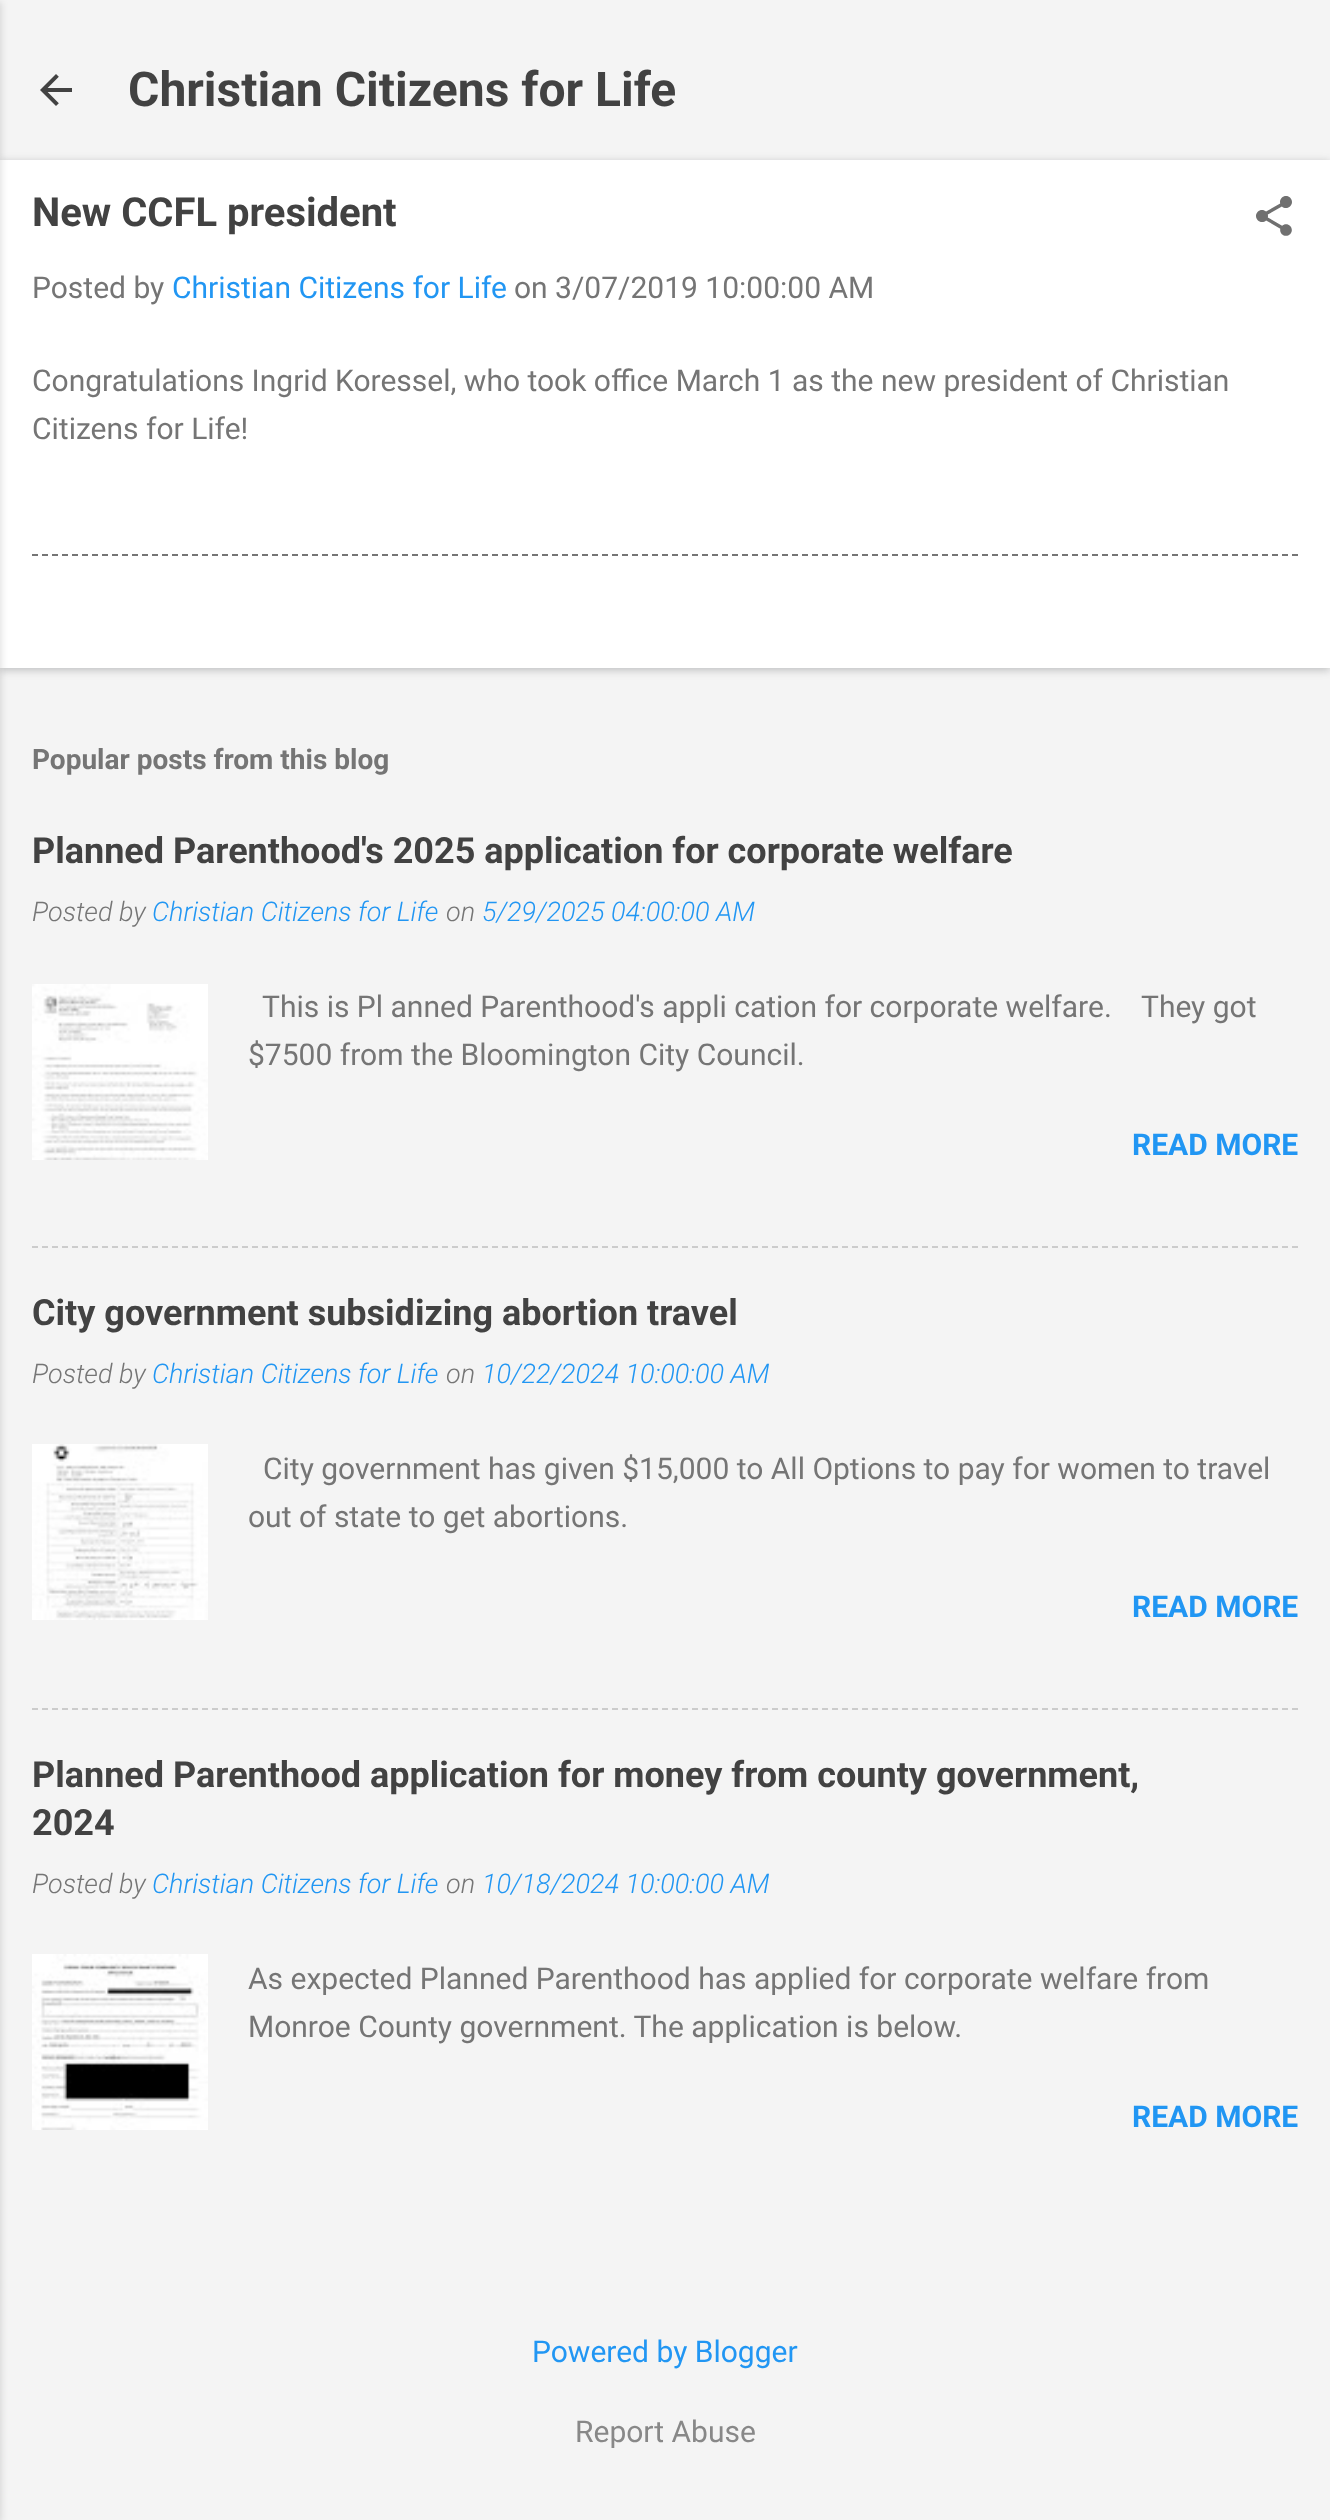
<svg xmlns="http://www.w3.org/2000/svg" width="1330" height="2520">
<style>
.a{font:bold 48px Roboto;fill:#424242}
.b{font:bold 40px Roboto;fill:#424242}
.c{font:30px Roboto;fill:#757575}
.d{font:30px Roboto;fill:#2196f3}
.e{font:bold 28px Roboto;fill:#757575}
.f{font:bold 36px Roboto;fill:#424242}
.g{font:italic 300 27px Roboto;fill:#757575}
.h{font:italic 300 27px Roboto;fill:#2196f3}
.i{font:bold 30px Roboto;fill:#2196f3}
.j{font:30px Roboto;fill:#888}
</style>
<rect width="100%" height="100%" fill="#f4f4f4"/>
<path fill="#3c40434d" filter="blur(4px)" d="M0 162h1330v508H0z"/>
<path fill="#fff" d="M0 160h1330v508H0z"/>
<path fill="#0000001a" filter="blur(3px)" d="M-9 2h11v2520H-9z"/>
<image href="1.png" x="40" y="74" width="32" height="32"/>
<image href="2.png" x="1256" y="196" width="36" height="40"/>
<path fill="none" stroke="#757575" stroke-width="2" stroke-dasharray="6 4" d="M32 555h1266"/>
<image href="3.png" x="32" y="984" width="176" height="176"/>
<path fill="none" stroke="#ccc" stroke-width="2" stroke-dasharray="6 4" d="M32 1247h1266"/>
<image href="4.png" x="32" y="1444" width="176" height="176"/>
<path fill="none" stroke="#ccc" stroke-width="2" stroke-dasharray="6 4" d="M32 1709h1266"/>
<image href="5.png" x="32" y="1954" width="176" height="176"/>
<text class="a" x="128" y="106">Christian Citizens for Life</text>
<text class="b" x="32" y="226">New CCFL president</text>
<text class="c" x="32" y="298">Posted by</text>
<text class="d" x="172" y="298">Christian Citizens for Life</text>
<text class="c" x="514" y="298">on 3/07/2019 10:00:00 AM</text>
<text class="c" x="32" y="391">Congratulations Ingrid Koressel, who took office March 1 as the new president of Christian</text>
<text class="c" x="32" y="439">Citizens for Life!</text>
<text class="e" x="32" y="769">Popular posts from this blog</text>
<text class="f" x="32" y="863">Planned Parenthood's 2025 application for corporate welfare</text>
<text class="g" x="32" y="921">Posted by</text>
<text class="h" x="152" y="921">Christian Citizens for Life</text>
<text class="g" x="446" y="921">on</text>
<text class="h" x="482" y="921">5/29/2025 04:00:00 AM</text>
<text class="c" xml:space="preserve" x="262" y="1017">This is Pl anned Parenthood's appli cation for corporate welfare.    They got</text>
<text class="c" x="248" y="1065">$7500 from the Bloomington City Council.</text>
<text class="i" x="1132" y="1155">READ MORE</text>
<text class="f" x="32" y="1325">City government subsidizing abortion travel</text>
<text class="g" x="32" y="1383">Posted by</text>
<text class="h" x="152" y="1383">Christian Citizens for Life</text>
<text class="g" x="446" y="1383">on</text>
<text class="h" x="482" y="1383">10/22/2024 10:00:00 AM</text>
<text class="c" x="263" y="1479">City government has given $15,000 to All Options to pay for women to travel</text>
<text class="c" x="248" y="1527">out of state to get abortions.</text>
<text class="i" x="1132" y="1617">READ MORE</text>
<text class="f" x="32" y="1787">Planned Parenthood application for money from county government,</text>
<text class="f" x="32" y="1835">2024</text>
<text class="g" x="32" y="1893">Posted by</text>
<text class="h" x="152" y="1893">Christian Citizens for Life</text>
<text class="g" x="446" y="1893">on</text>
<text class="h" x="482" y="1893">10/18/2024 10:00:00 AM</text>
<text class="c" x="248" y="1989">As expected Planned Parenthood has applied for corporate welfare from</text>
<text class="c" x="248" y="2037">Monroe County government. The application is below.</text>
<text class="i" x="1132" y="2127">READ MORE</text>
<text class="d" x="532" y="2362">Powered by Blogger</text>
<text class="j" x="575" y="2442">Report Abuse</text>
</svg>
